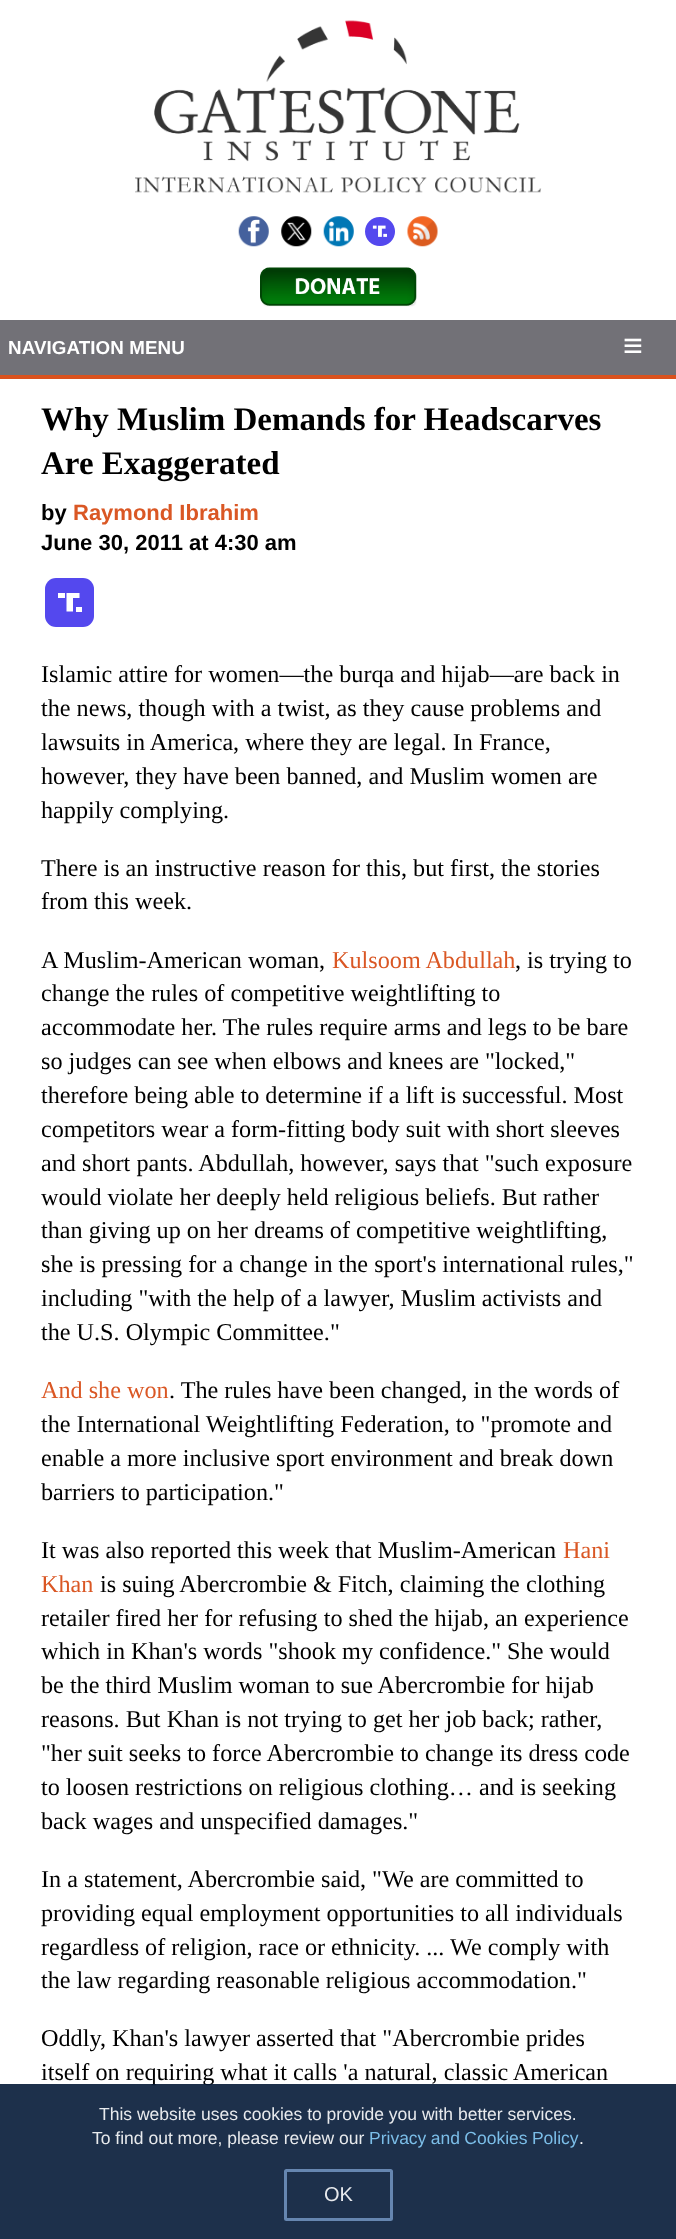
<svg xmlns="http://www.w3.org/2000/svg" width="676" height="2239">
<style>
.a{font:bold 18.75px Liberation Sans;letter-spacing:0.1px;fill:#fff}
.b{font:bold 34px Liberation Sans;letter-spacing:0.1px;fill:#fff}
.c{font:bold 33px Liberation Serif;fill:#000}
.d{font:bold 22px Liberation Sans;fill:#000}
.e{font:bold 22px Liberation Sans;fill:#da5724}
.f{font:24.2px Liberation Serif;fill:#000}
.g{font:24.2px Liberation Serif;fill:#da5724}
.h{font:17.5px Liberation Sans;fill:#e8eaed}
.i{font:17.5px Liberation Sans;fill:#7cbee8}
.j{font:17.5px Liberation Sans;fill:#fff}
.k{font:20px Liberation Sans;fill:#e8eaed}
</style>
<rect width="100%" height="100%" fill="#fff"/>
<image href="1.png" x="135" y="20" width="407" height="173"/>
<image href="2.png" x="238" y="216" width="31" height="31"/>
<image href="3.png" x="281" y="216" width="31" height="31"/>
<image href="4.png" x="323" y="216" width="31" height="31"/>
<image href="5.png" x="365" y="217" width="30" height="29"/>
<image href="6.png" x="407" y="216" width="31" height="31"/>
<image href="7.png" x="260" y="267" width="157" height="40"/>
<path fill="#727177" d="M0 320h676v55H0z"/>
<path fill="#da521e" d="M0 375h676v4H0z"/>
<rect fill="#5448ee" x="45" y="578" width="49" height="49" rx="11"/>
<path fill="#fff" d="M58 593h7v5H58z"/>
<path fill="#fff" d="M76 607h6v5H76z"/>
<path fill="#fff" d="M79.5 598v-5h-13v18.5h6.5v-13.5z"/>
<text class="a" x="8" y="354">NAVIGATION MENU</text>
<text class="b" x="623" y="357">≡</text>
<text class="c" x="41" y="430">Why Muslim Demands for Headscarves</text>
<text class="c" x="41" y="474">Are Exaggerated</text>
<text class="d" x="41" y="520">by</text>
<text class="e" x="73" y="520">Raymond Ibrahim</text>
<text class="d" x="41" y="550">June 30, 2011 at 4:30 am</text>
<text class="f" x="41" y="682">Islamic attire for women—the burqa and hijab—are back in</text>
<text class="f" x="41" y="716">the news, though with a twist, as they cause problems and</text>
<text class="f" x="41" y="750">lawsuits in America, where they are legal. In France,</text>
<text class="f" x="41" y="784">however, they have been banned, and Muslim women are</text>
<text class="f" x="41" y="818">happily complying.</text>
<text class="f" x="41" y="876">There is an instructive reason for this, but first, the stories</text>
<text class="f" x="41" y="909">from this week.</text>
<text class="f" x="41" y="968">A Muslim-American woman,</text>
<text class="g" x="332" y="968">Kulsoom Abdullah</text>
<text class="f" x="515" y="968">, is trying to</text>
<text class="f" x="41" y="1001">change the rules of competitive weightlifting to</text>
<text class="f" x="41" y="1035">accommodate her. The rules require arms and legs to be bare</text>
<text class="f" x="41" y="1069">so judges can see when elbows and knees are "locked,"</text>
<text class="f" x="41" y="1103">therefore being able to determine if a lift is successful. Most</text>
<text class="f" x="41" y="1137">competitors wear a form-fitting body suit with short sleeves</text>
<text class="f" x="41" y="1171">and short pants. Abdullah, however, says that "such exposure</text>
<text class="f" x="41" y="1205">would violate her deeply held religious beliefs. But rather</text>
<text class="f" x="41" y="1238">than giving up on her dreams of competitive weightlifting,</text>
<text class="f" x="41" y="1272">she is pressing for a change in the sport's international rules,"</text>
<text class="f" x="41" y="1306">including "with the help of a lawyer, Muslim activists and</text>
<text class="f" x="41" y="1340">the U.S. Olympic Committee."</text>
<text class="g" x="41" y="1398">And she won</text>
<text class="f" x="169" y="1398">. The rules have been changed, in the words of</text>
<text class="f" x="41" y="1432">the International Weightlifting Federation, to "promote and</text>
<text class="f" x="41" y="1466">enable a more inclusive sport environment and break down</text>
<text class="f" x="41" y="1500">barriers to participation."</text>
<text class="f" x="41" y="1558">It was also reported this week that Muslim-American</text>
<text class="g" x="563" y="1558">Hani</text>
<text class="g" x="41" y="1592">Khan</text>
<text class="f" x="100" y="1592">is suing Abercrombie &amp; Fitch, claiming the clothing</text>
<text class="f" x="41" y="1626">retailer fired her for refusing to shed the hijab, an experience</text>
<text class="f" x="41" y="1659">which in Khan's words "shook my confidence." She would</text>
<text class="f" x="41" y="1693">be the third Muslim woman to sue Abercrombie for hijab</text>
<text class="f" x="41" y="1727">reasons. But Khan is not trying to get her job back; rather,</text>
<text class="f" x="41" y="1761">"her suit seeks to force Abercrombie to change its dress code</text>
<text class="f" x="41" y="1795">to loosen restrictions on religious clothing… and is seeking</text>
<text class="f" x="41" y="1829">back wages and unspecified damages."</text>
<text class="f" x="41" y="1887">In a statement, Abercrombie said, "We are committed to</text>
<text class="f" x="41" y="1921">providing equal employment opportunities to all individuals</text>
<text class="f" x="41" y="1955">regardless of religion, race or ethnicity. ... We comply with</text>
<text class="f" x="41" y="1988">the law regarding reasonable religious accommodation."</text>
<text class="f" x="41" y="2046">Oddly, Khan's lawyer asserted that "Abercrombie prides</text>
<text class="f" x="41" y="2080">itself on requiring what it calls 'a natural, classic American</text>
<path fill="#041a37e6" d="M0 2084h676v155H0z"/>
<text class="h" x="99" y="2120">This website uses cookies to provide you with better services.</text>
<text class="h" x="92" y="2144">To find out more, please review our</text>
<text class="i" x="369" y="2144" word-spacing="-0.5">Privacy and Cookies Policy</text>
<text class="j" x="579" y="2144">.</text>
<rect fill="none" stroke="#6f90bbe6" stroke-width="3" x="285.5" y="2170.5" width="106" height="49" rx="1"/>
<text class="k" x="324" y="2201">OK</text>
</svg>
